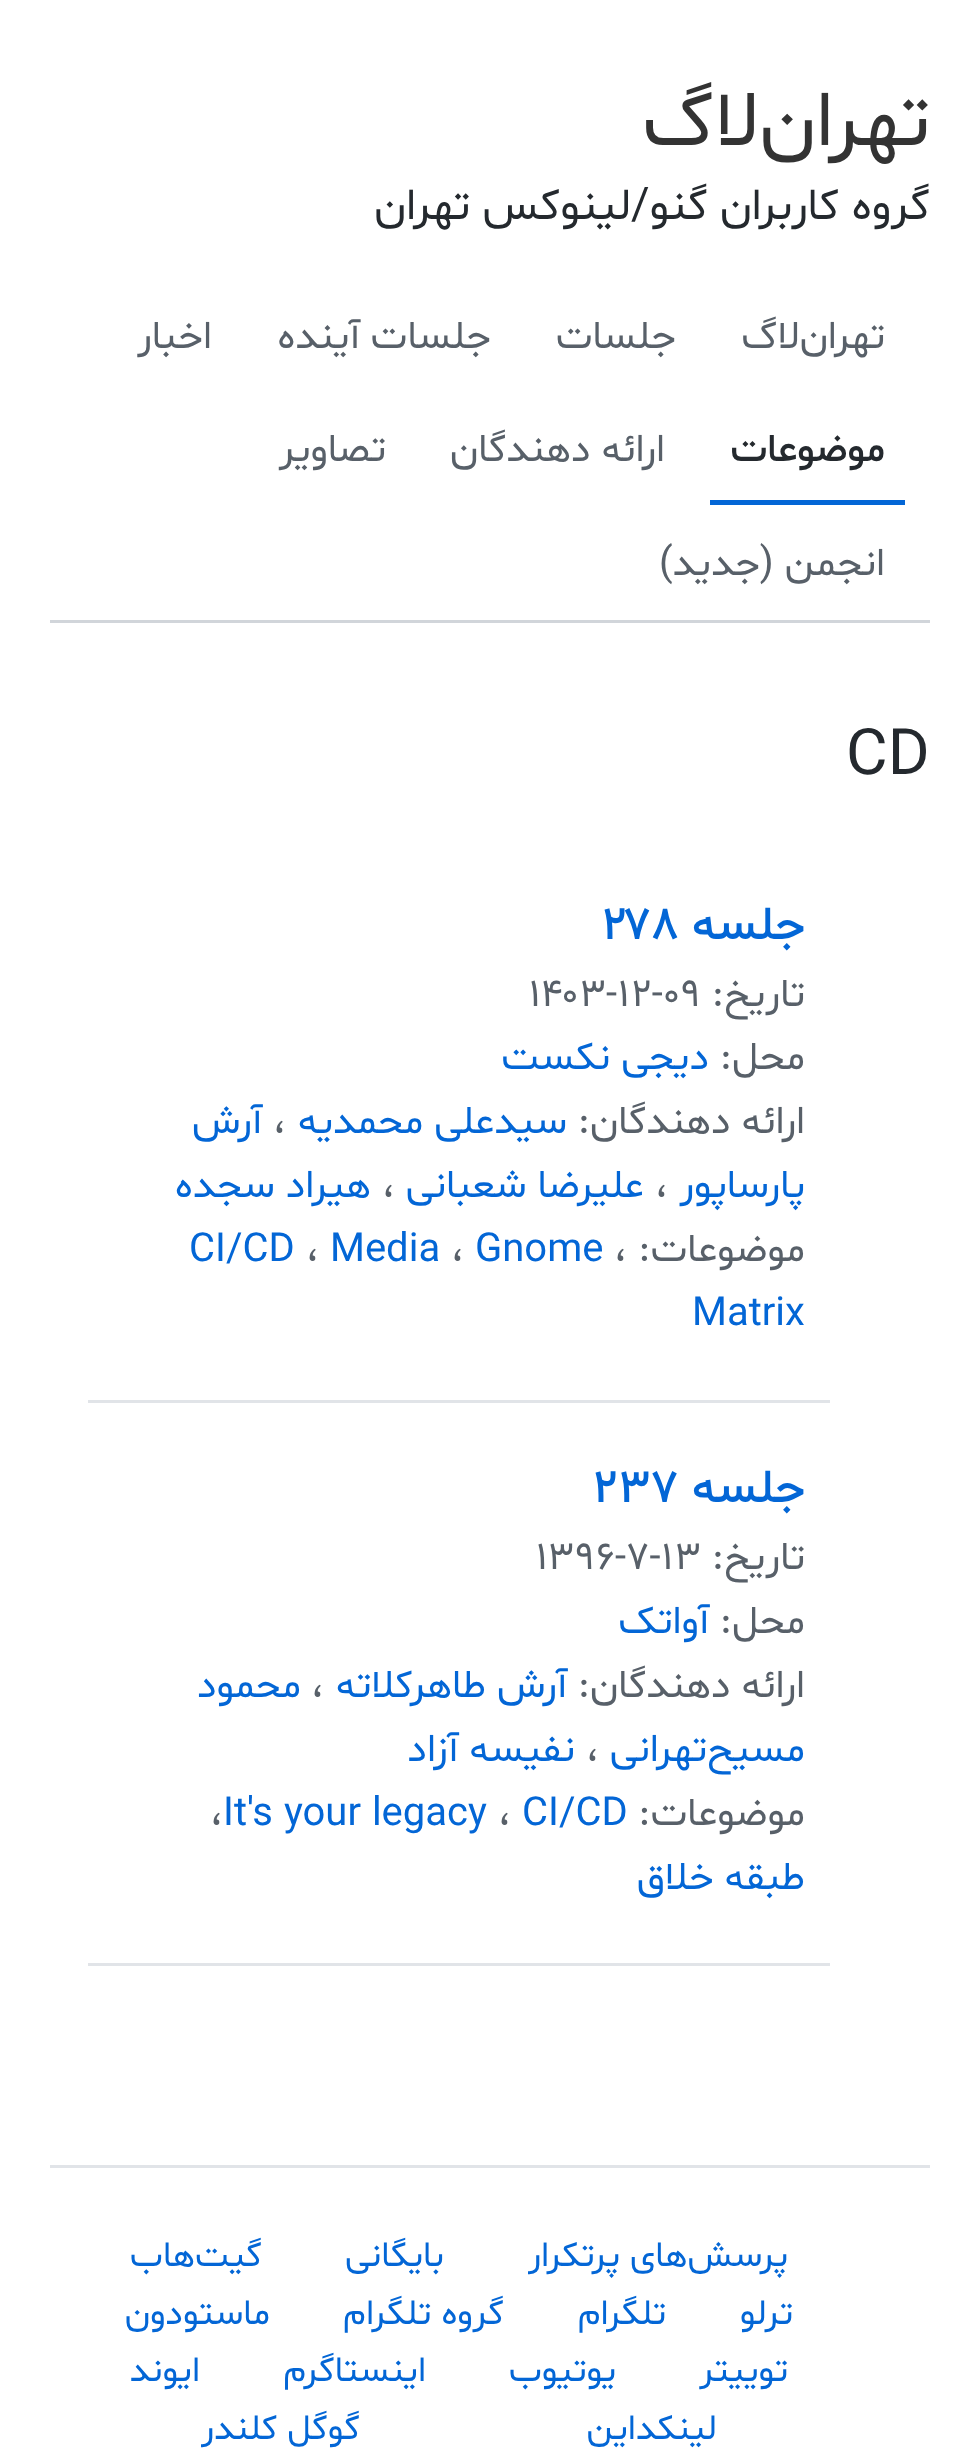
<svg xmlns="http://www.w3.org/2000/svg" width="980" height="2451">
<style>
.a{font:80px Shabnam;direction:rtl;fill:#333}
.b{font:45px Shabnam;direction:rtl;fill:#24292e}
.c{font:40px Shabnam;direction:rtl;fill:#586069}
.d{font:500 40px Shabnam;direction:rtl;fill:#24292e}
.e{font:64px Shabnam;fill:#24292e}
.f{font:500 48px Shabnam;direction:rtl;fill:#0366d6}
.g{font:500 48px Shabnam;fill:#0366d6}
.h{font:40px Shabnam;fill:#586069}
.i{font:40px Shabnam;direction:rtl;fill:#0366d6}
.j{font:40px Shabnam;fill:#0366d6}
.k{font:36px Shabnam;direction:rtl;fill:#0366d6}
</style>
<rect width="100%" height="100%" fill="#fff"/>
<path fill="#d1d5da" d="M50 620h880v3H50z"/>
<path fill="#0366d6" d="M710 500h195v5H710z"/>
<path fill="#e1e4e8" d="M88 1400h742v3H88z"/>
<path fill="#e1e4e8" d="M88 1963h742v3H88z"/>
<path fill="#e1e4e8" d="M50 2165h880v3H50z"/>
<text class="a" x="930" y="145">تهران‌لاگ</text>
<text class="b" x="930" y="219">گروه کاربران گنو/لینوکس تهران</text>
<text class="c" x="885" y="348">تهران‌لاگ</text>
<text class="c" x="676" y="348">جلسات</text>
<text class="c" x="491" y="348">جلسات آینده</text>
<text class="c" x="212" y="348">اخبار</text>
<text class="d" x="885" y="461">موضوعات</text>
<text class="c" x="665" y="461">ارائه دهندگان</text>
<text class="c" x="386" y="461">تصاویر</text>
<text class="c" x="885" y="575">انجمن (جدید)</text>
<text class="e" x="846" y="774">CD</text>
<text class="f" x="805" y="939">جلسه</text>
<text class="g" x="601" y="939">۲۷۸</text>
<text class="c" x="805" y="1006">تاریخ:</text>
<text class="h" x="528" y="1006">۱۴۰۳-۱۲-۰۹</text>
<text class="c" x="805" y="1069">محل:</text>
<text class="i" x="709" y="1069">دیجی نکست</text>
<text class="c" x="805" y="1133">ارائه دهندگان:</text>
<text class="i" x="567" y="1133">سیدعلی محمدیه</text>
<text class="h" x="273" y="1133">،</text>
<text class="i" x="262" y="1133">آرش</text>
<text class="i" x="805" y="1197">پارساپور</text>
<text class="h" x="655" y="1197">،</text>
<text class="i" x="644" y="1197">علیرضا شعبانی</text>
<text class="h" x="382" y="1197">،</text>
<text class="i" x="371" y="1197">هیراد سجده</text>
<text class="c" x="805" y="1261">موضوعات:</text>
<text class="h" x="614" y="1261">،</text>
<text class="j" x="475" y="1261">Gnome</text>
<text class="h" x="451" y="1261">،</text>
<text class="j" x="330" y="1261">Media</text>
<text class="h" x="306" y="1261">،</text>
<text class="j" x="189" y="1261">CI/CD</text>
<text class="j" x="692" y="1325">Matrix</text>
<text class="f" x="805" y="1502">جلسه</text>
<text class="g" x="592" y="1502">۲۳۷</text>
<text class="c" x="805" y="1569">تاریخ:</text>
<text class="h" x="535" y="1569">۱۳۹۶-۷-۱۳</text>
<text class="c" x="805" y="1633">محل:</text>
<text class="i" x="709" y="1633">آواتک</text>
<text class="c" x="805" y="1697">ارائه دهندگان:</text>
<text class="i" x="567" y="1697">آرش طاهرکلاته</text>
<text class="h" x="311" y="1697">،</text>
<text class="i" x="301" y="1697">محمود</text>
<text class="i" x="805" y="1761">مسیح‌تهرانی</text>
<text class="h" x="586" y="1761">،</text>
<text class="i" x="575" y="1761">نفیسه آزاد</text>
<text class="c" x="805" y="1825">موضوعات:</text>
<text class="j" x="522" y="1825">CI/CD</text>
<text class="h" x="498" y="1825">،</text>
<text class="j" x="223" y="1825">It's your legacy</text>
<text class="h" x="210" y="1825">،</text>
<text class="i" x="805" y="1889">طبقه خلاق</text>
<text class="k" x="788" y="2266">پرسش‌های پرتکرار</text>
<text class="k" x="444" y="2266">بایگانی</text>
<text class="k" x="262" y="2266">گیت‌هاب</text>
<text class="k" x="793" y="2324">ترلو</text>
<text class="k" x="666" y="2324">تلگرام</text>
<text class="k" x="504" y="2324">گروه تلگرام</text>
<text class="k" x="270" y="2324">ماستودون</text>
<text class="k" x="788" y="2381">توییتر</text>
<text class="k" x="616" y="2381">یوتیوب</text>
<text class="k" x="426" y="2381">اینستاگرم</text>
<text class="k" x="200" y="2381">ایوند</text>
<text class="k" x="717" y="2439">لینکداین</text>
<text class="k" x="360" y="2439">گوگل کلندر</text>
</svg>
